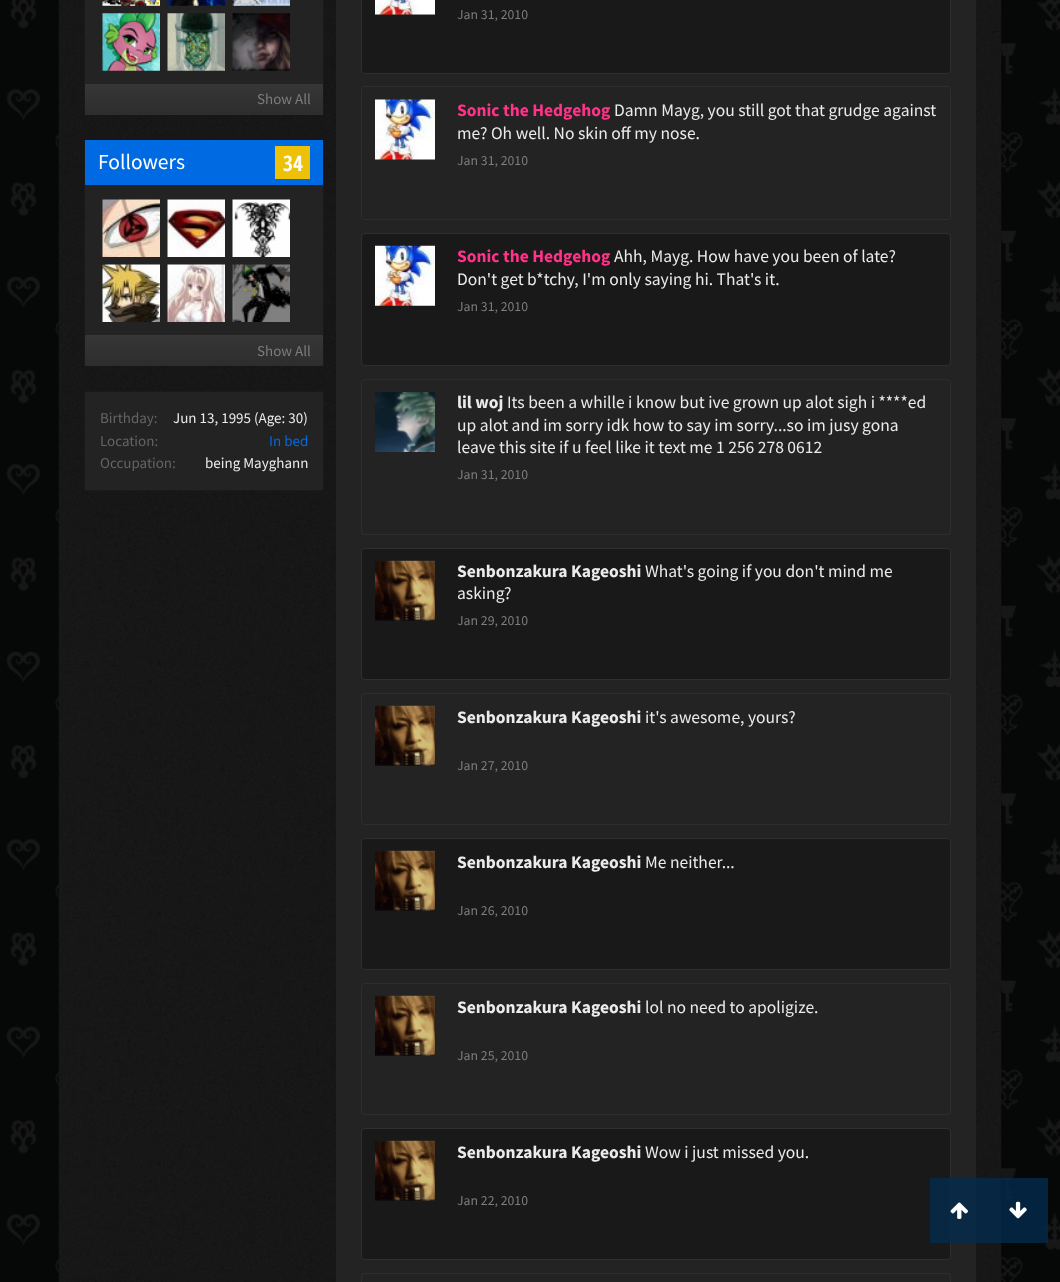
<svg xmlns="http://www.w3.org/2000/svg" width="1060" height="1282">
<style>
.a{font:15px Source Sans Pro;fill:#7d7d7d}
.b{font:21.5px Source Sans Pro;fill:#fff}
.c{font:bold 21.5px Open Sans Condensed;fill:#fff}
.d{font:15px Source Sans Pro;fill:#646464}
.e{font:15px Source Sans Pro;fill:#ebebeb}
.f{font:15px Source Sans Pro;fill:#006ae3}
.g{font:13.75px Source Sans Pro;fill:#7d7d7d}
.h{font:bold 17.5px Source Sans Pro;fill:#ff3387}
.i{font:17.5px Source Sans Pro;fill:#ebebeb}
.j{font:bold 17.5px Source Sans Pro;fill:#ebebeb}
</style>
<defs>
<linearGradient id="g1" gradientUnits="userSpaceOnUse" x1="204" y1="85" x2="204" y2="115"><stop offset="0" stop-color="#363636"/><stop offset="1" stop-color="#2d2d2d"/></linearGradient>
<linearGradient id="g2" gradientUnits="userSpaceOnUse" x1="204" y1="336" x2="204" y2="366"><stop offset="0" stop-color="#363636"/><stop offset="1" stop-color="#2d2d2d"/></linearGradient>
</defs>
<rect width="100%" height="100%" fill="#fff"/>
<image href="1.png" x="0" y="0" width="1060" height="1282"/>
<image href="2.png" x="58" y="0" width="944" height="1282"/>
<path fill="#232323" d="M85 0h238v84H85z"/>
<path fill="none" stroke="#1a1a1a" d="M84.5 -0.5h239v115H84.5z"/>
<image href="3.png" x="102" y="0" width="58" height="6"/>
<image href="4.png" x="167" y="0" width="58" height="6"/>
<image href="5.png" x="232" y="0" width="58" height="6"/>
<image href="6.png" x="102" y="13" width="58" height="58"/>
<image href="7.png" x="167" y="13" width="58" height="58"/>
<image href="8.png" x="232" y="13" width="58" height="58"/>
<path fill="url(#g1)" d="M85 85h238v30H85z"/>
<path fill="#373737" d="M85 84h238v1H85z"/>
<path fill="#232323" d="M85 185h238v150H85z"/>
<path fill="none" stroke="#1a1a1a" d="M84.5 140.5h239v225H84.5z"/>
<path fill="#006ae3" d="M85 140h238v45H85z"/>
<path fill="#edc108" d="M275 146h35v33H275z"/>
<image href="9.png" x="102" y="199" width="58" height="58"/>
<image href="10.png" x="167" y="199" width="58" height="58"/>
<image href="11.png" x="232" y="199" width="58" height="58"/>
<image href="12.png" x="102" y="264" width="58" height="58"/>
<image href="13.png" x="167" y="264" width="58" height="58"/>
<image href="14.png" x="232" y="264" width="58" height="58"/>
<path fill="url(#g2)" d="M85 336h238v30H85z"/>
<path fill="#373737" d="M85 335h238v1H85z"/>
<path fill="#232323" stroke="#1a1a1a" d="M84.5 391.5h239v99H84.5z"/>
<path fill="#232323" d="M336 0h640v1282H336z"/>
<rect fill="#191919" stroke="#2e2e2e" x="361.5" y="-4.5" width="589" height="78" rx="3.5"/>
<path fill="#232323" d="M375 14h60v1H375z"/>
<image href="15.png" x="375" y="0" width="60" height="15"/>
<rect fill="none" stroke="#2e2e2e" x="361.5" y="86.5" width="589" height="133" rx="3.5"/>
<image href="16.png" x="375" y="99" width="60" height="61"/>
<rect fill="#191919" stroke="#2e2e2e" x="361.5" y="233.5" width="589" height="132" rx="3.5"/>
<image href="17.png" x="375" y="245" width="60" height="61"/>
<rect fill="none" stroke="#2e2e2e" x="361.5" y="379.5" width="589" height="155" rx="3.5"/>
<image href="18.png" x="375" y="392" width="60" height="60"/>
<rect fill="#191919" stroke="#2e2e2e" x="361.5" y="548.5" width="589" height="131" rx="3.5"/>
<image href="19.png" x="375" y="560" width="60" height="61"/>
<rect fill="none" stroke="#2e2e2e" x="361.5" y="693.5" width="589" height="131" rx="3.5"/>
<image href="20.png" x="375" y="705" width="60" height="61"/>
<rect fill="#191919" stroke="#2e2e2e" x="361.5" y="838.5" width="589" height="131" rx="3.5"/>
<image href="19.png" x="375" y="850" width="60" height="61"/>
<rect fill="none" stroke="#2e2e2e" x="361.5" y="983.5" width="589" height="131" rx="3.5"/>
<image href="21.png" x="375" y="995" width="60" height="61"/>
<rect fill="#191919" stroke="#2e2e2e" x="361.5" y="1128.5" width="589" height="131" rx="3.5"/>
<image href="19.png" x="375" y="1140" width="60" height="61"/>
<rect fill="none" stroke="#2e2e2e" x="361.5" y="1273.5" width="589" height="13" rx="3.5"/>
<path fill="#022b4ecc" d="M930 1178h59v65H930z"/>
<image href="22.png" x="950" y="1202" width="18" height="17"/>
<path fill="#022b4ecc" d="M989 1178h59v65H989z"/>
<image href="23.png" x="1009" y="1201" width="18" height="18"/>
<text class="a" x="257" y="104">Show All</text>
<text class="b" x="98" y="169">Followers</text>
<text class="c" x="283" y="171">34</text>
<text class="a" x="257" y="356">Show All</text>
<text class="d" x="100" y="423">Birthday:</text>
<text class="e" x="173" y="423">Jun 13, 1995 (Age: 30)</text>
<text class="d" x="100" y="446">Location:</text>
<text class="f" x="269" y="446">In bed</text>
<text class="d" x="100" y="468">Occupation:</text>
<text class="e" x="205" y="468">being Mayghann</text>
<text class="g" x="457" y="19">Jan 31, 2010</text>
<text class="h" x="457" y="116">Sonic the Hedgehog</text>
<text class="i" x="614" y="116">Damn Mayg, you still got that grudge against</text>
<text class="i" x="457" y="139">me? Oh well. No skin off my nose.</text>
<text class="g" x="457" y="165">Jan 31, 2010</text>
<text class="h" x="457" y="262">Sonic the Hedgehog</text>
<text class="i" x="614" y="262">Ahh, Mayg. How have you been of late?</text>
<text class="i" x="457" y="285">Don't get b*tchy, I'm only saying hi. That's it.</text>
<text class="g" x="457" y="311">Jan 31, 2010</text>
<text class="j" x="457" y="408">lil woj</text>
<text class="i" x="507" y="408">Its been a whille i know but ive grown up alot sigh i ****ed</text>
<text class="i" x="457" y="431">up alot and im sorry idk how to say im sorry...so im jusy gona</text>
<text class="i" x="457" y="453">leave this site if u feel like it text me 1 256 278 0612</text>
<text class="g" x="457" y="479">Jan 31, 2010</text>
<text class="j" x="457" y="577">Senbonzakura Kageoshi</text>
<text class="i" x="645" y="577">What's going if you don't mind me</text>
<text class="i" x="457" y="599">asking?</text>
<text class="g" x="457" y="625">Jan 29, 2010</text>
<text class="j" x="457" y="723">Senbonzakura Kageoshi</text>
<text class="i" x="645" y="723">it's awesome, yours?</text>
<text class="g" x="457" y="770">Jan 27, 2010</text>
<text class="j" x="457" y="868">Senbonzakura Kageoshi</text>
<text class="i" x="645" y="868">Me neither...</text>
<text class="g" x="457" y="915">Jan 26, 2010</text>
<text class="j" x="457" y="1013">Senbonzakura Kageoshi</text>
<text class="i" x="645" y="1013">lol no need to apoligize.</text>
<text class="g" x="457" y="1060">Jan 25, 2010</text>
<text class="j" x="457" y="1158">Senbonzakura Kageoshi</text>
<text class="i" x="645" y="1158">Wow i just missed you.</text>
<text class="g" x="457" y="1205">Jan 22, 2010</text>
</svg>
